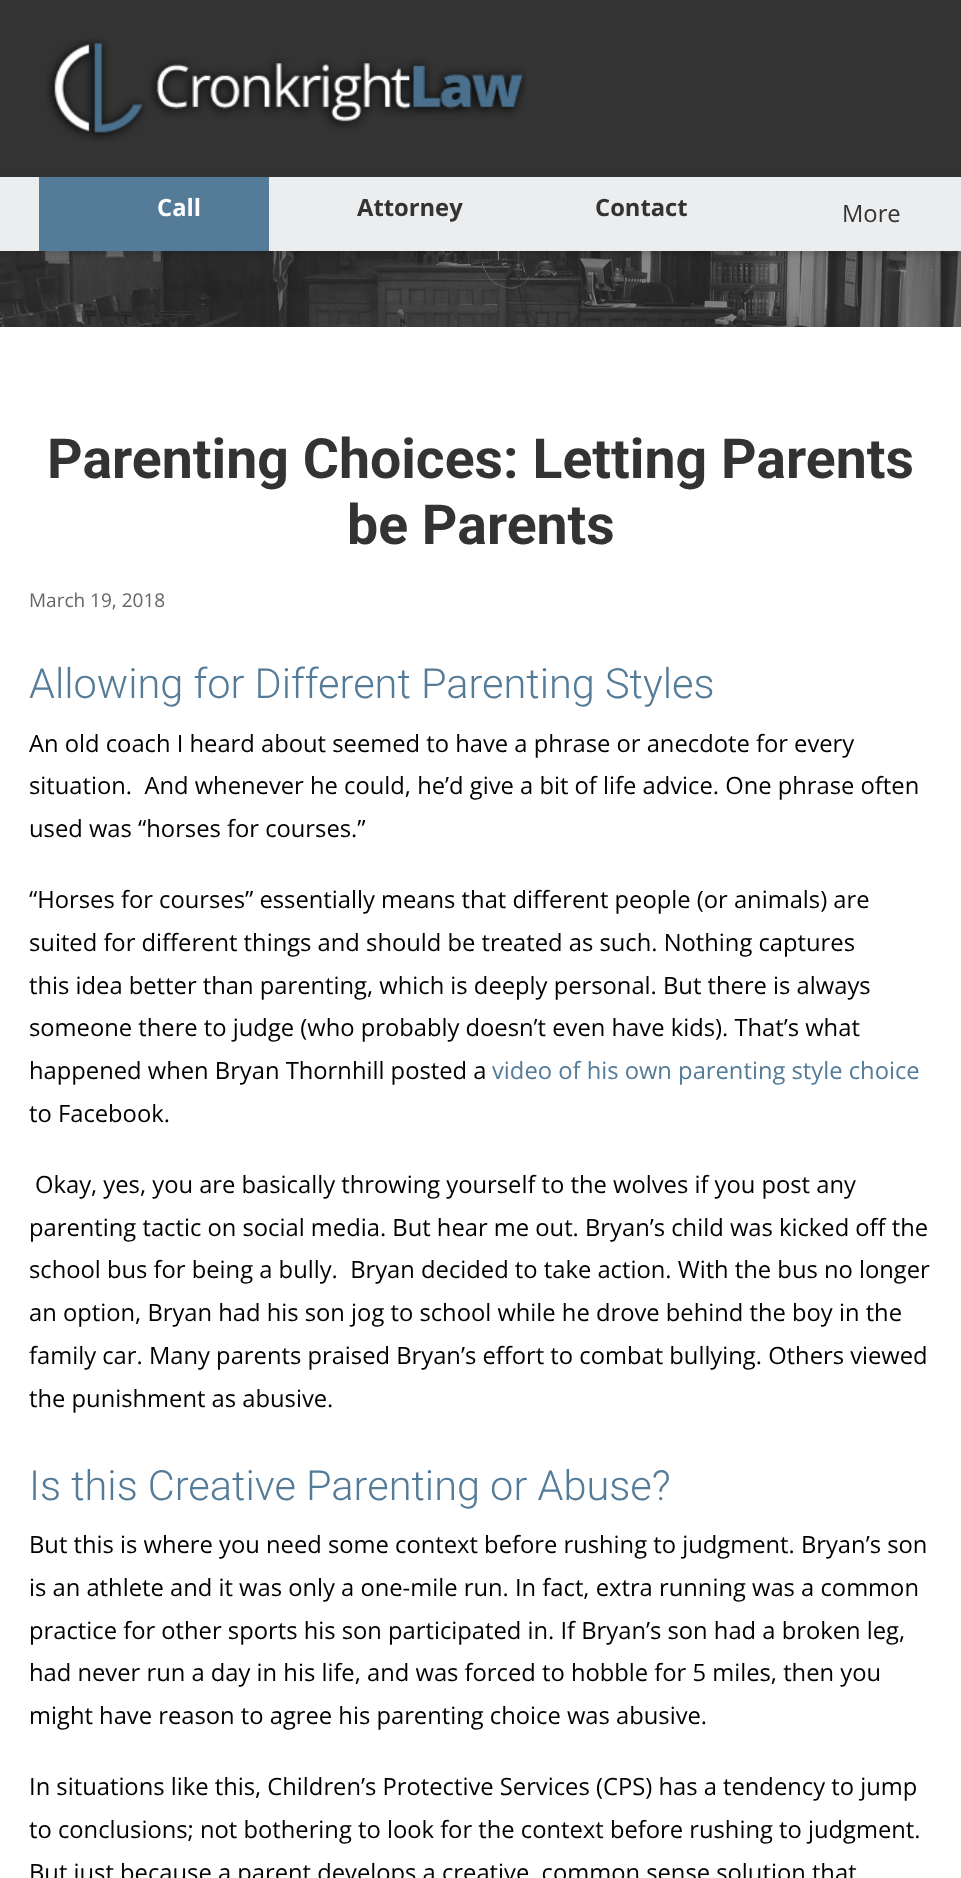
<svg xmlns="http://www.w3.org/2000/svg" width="961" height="1878">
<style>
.a{font:bold 23.75px Open Sans;fill:#fff}
.b{font:bold 23.75px Open Sans;fill:#333}
.c{font:23.75px Open Sans;fill:#333}
.d{font:bold 55.4px Roboto;fill:#333}
.e{font:19px Open Sans;fill:#656565}
.f{font:300 41.5px Roboto;fill:#547b98}
.g{font:23.75px Open Sans;fill:#000}
.h{font:23.75px Open Sans;fill:#547b98}
</style>
<rect width="100%" height="100%" fill="#fff"/>
<path fill="#333" d="M0 0h961v177H0z"/>
<image href="1.png" x="46" y="39" width="480" height="102"/>
<image href="2.png" x="0" y="251" width="961" height="76"/>
<path fill="#00000033" filter="blur(3.5px)" d="M0 180h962v74H0z"/>
<path fill="#ebedef" d="M0 177h961v74H0z"/>
<path fill="#547b98" d="M39 177h230v74H39z"/>
<text class="a" x="157" y="216">Call</text>
<text class="b" x="357" y="216">Attorney</text>
<text class="b" x="595" y="216">Contact</text>
<text class="c" x="842" y="222">More</text>
<text class="d" x="47" y="478">Parenting Choices: Letting Parents</text>
<text class="d" x="347" y="544">be Parents</text>
<text class="e" x="29" y="607">March 19, 2018</text>
<text class="f" x="29" y="698">Allowing for Different Parenting Styles</text>
<text class="g" x="29" y="752">An old coach I heard about seemed to have a phrase or anecdote for every</text>
<text class="g" xml:space="preserve" x="29" y="794">situation.  And whenever he could, he’d give a bit of life advice. One phrase often</text>
<text class="g" x="29" y="837">used was “horses for courses.”</text>
<text class="g" x="29" y="908">“Horses for courses” essentially means that different people (or animals) are</text>
<text class="g" x="29" y="951">suited for different things and should be treated as such. Nothing captures</text>
<text class="g" x="29" y="994">this idea better than parenting, which is deeply personal. But there is always</text>
<text class="g" x="29" y="1036">someone there to judge (who probably doesn’t even have kids). That’s what</text>
<text class="g" x="29" y="1079">happened when Bryan Thornhill posted a</text>
<text class="h" x="492" y="1079">video of his own parenting style choice</text>
<text class="g" x="29" y="1122">to Facebook.</text>
<text class="g" x="35" y="1193">Okay, yes, you are basically throwing yourself to the wolves if you post any</text>
<text class="g" x="29" y="1236">parenting tactic on social media. But hear me out. Bryan’s child was kicked off the</text>
<text class="g" xml:space="preserve" x="29" y="1278">school bus for being a bully.  Bryan decided to take action. With the bus no longer</text>
<text class="g" x="29" y="1321">an option, Bryan had his son jog to school while he drove behind the boy in the</text>
<text class="g" x="29" y="1364">family car. Many parents praised Bryan’s effort to combat bullying. Others viewed</text>
<text class="g" x="29" y="1407">the punishment as abusive.</text>
<text class="f" x="29" y="1500">Is this Creative Parenting or Abuse?</text>
<text class="g" x="29" y="1553">But this is where you need some context before rushing to judgment. Bryan’s son</text>
<text class="g" x="29" y="1596">is an athlete and it was only a one-mile run. In fact, extra running was a common</text>
<text class="g" x="29" y="1639">practice for other sports his son participated in. If Bryan’s son had a broken leg,</text>
<text class="g" x="29" y="1681">had never run a day in his life, and was forced to hobble for 5 miles, then you</text>
<text class="g" x="29" y="1724">might have reason to agree his parenting choice was abusive.</text>
<text class="g" x="29" y="1795">In situations like this, Children’s Protective Services (CPS) has a tendency to jump</text>
<text class="g" x="29" y="1838">to conclusions; not bothering to look for the context before rushing to judgment.</text>
<text class="g" x="29" y="1881">But just because a parent develops a creative, common sense solution that</text>
</svg>
